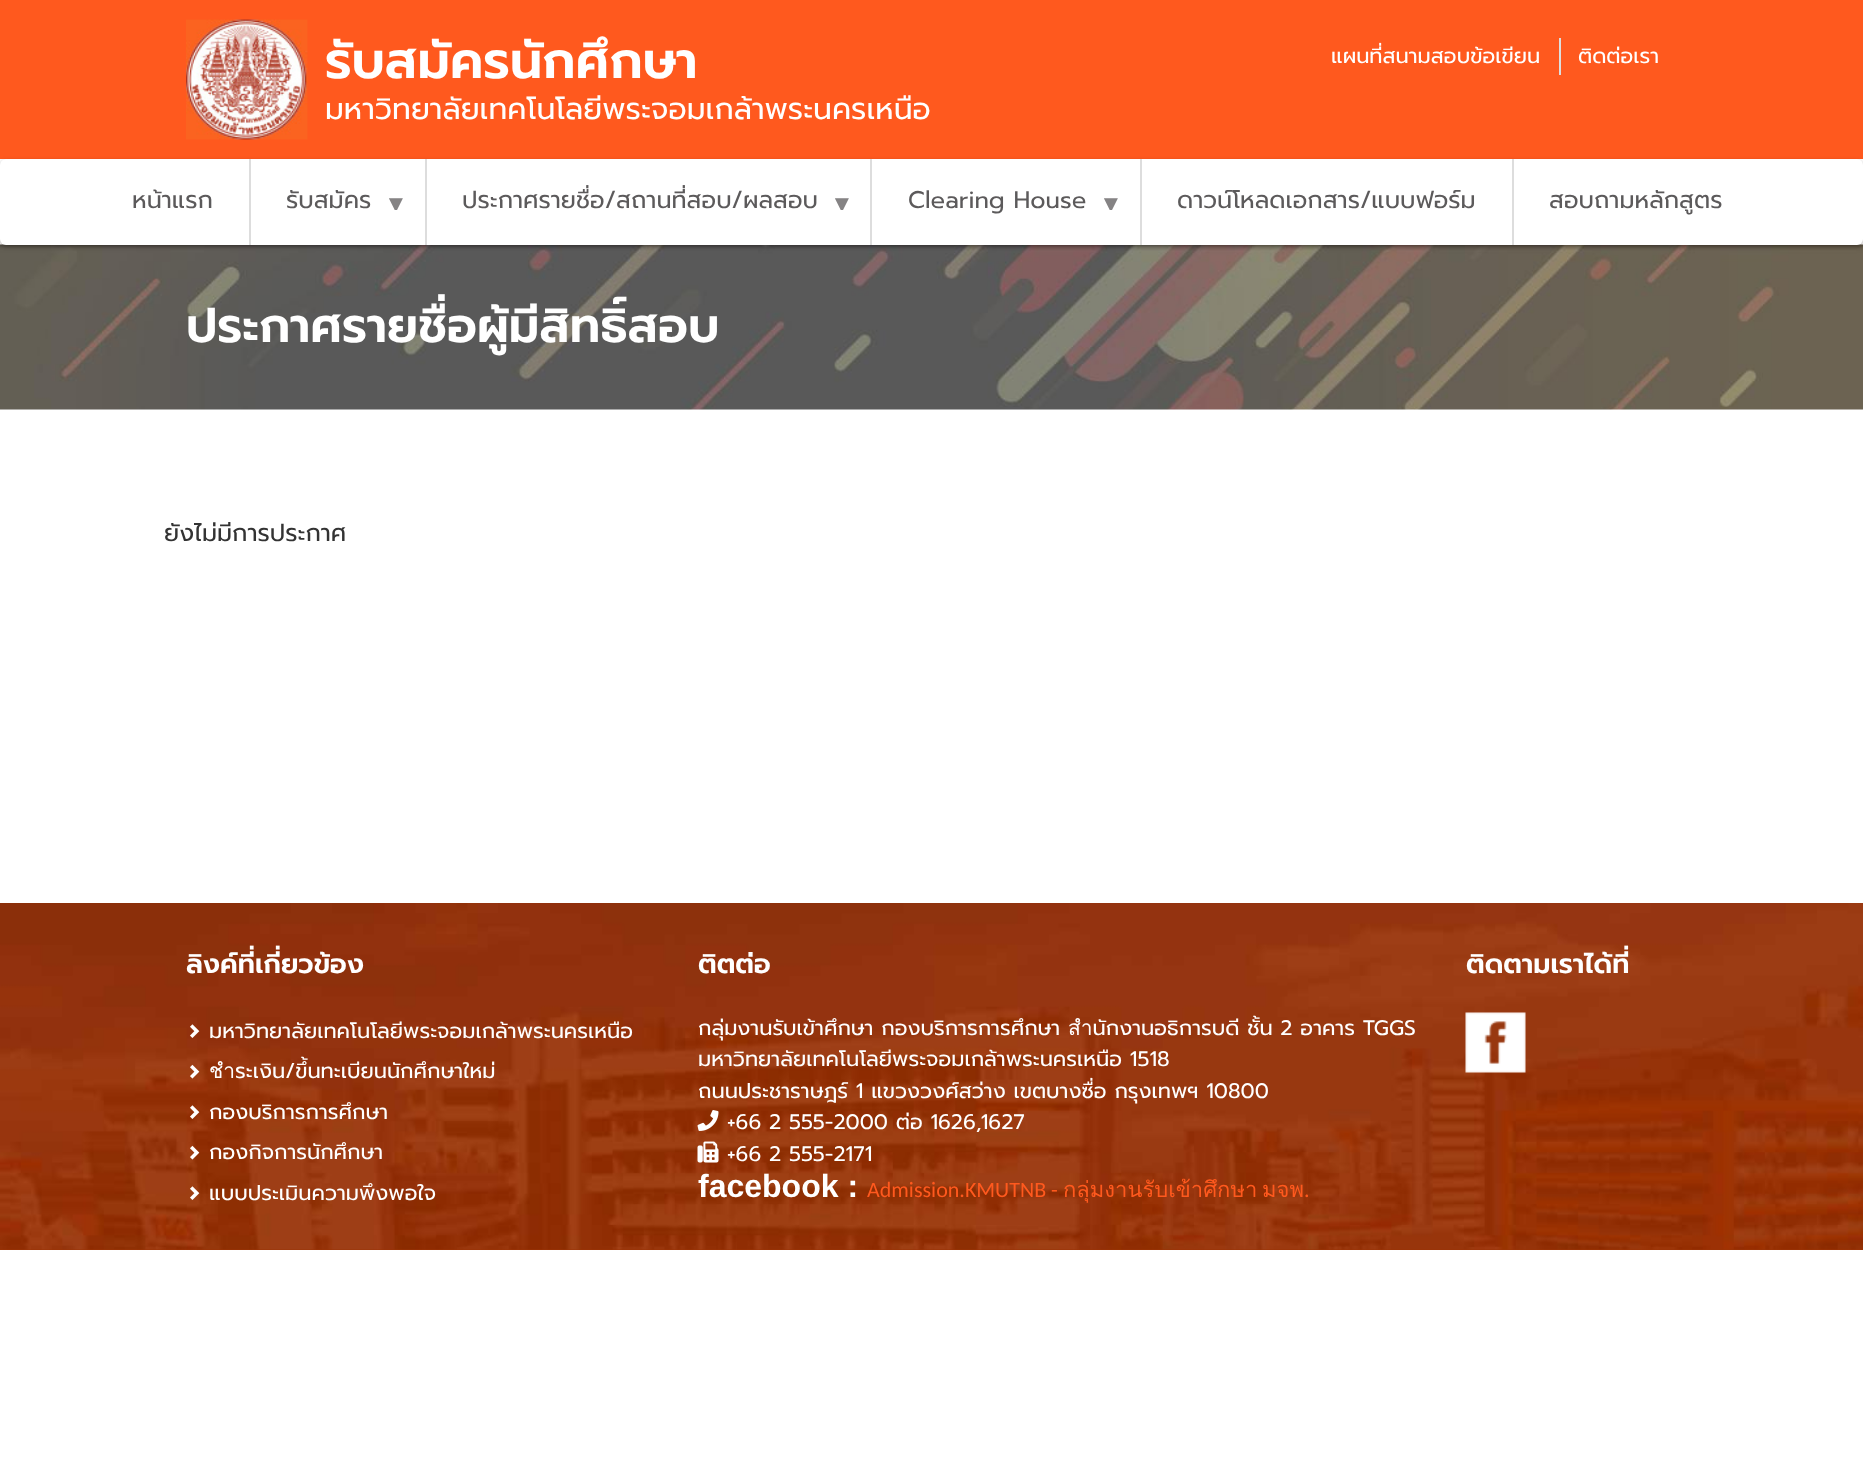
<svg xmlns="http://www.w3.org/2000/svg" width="1863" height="1484">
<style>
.a{font:600 51px Prompt;fill:#fff}
.b{font:30px Prompt;fill:#fff}
.c{font:21px Prompt;fill:#fff}
.d{font:24px Prompt;fill:#5c5a5b}
.e{font:24px Liberation Sans;fill:#858384}
.f{font:600 48px Prompt;fill:#fff}
.g{font:24px Prompt;fill:#333}
.h{font:600 27px Prompt;fill:#fff}
.i{font:bold 32px Liberation Sans;fill:#fff}
.j{font:22px Carlito;fill:#ff591e}
.k{font:22px Loma;fill:#ff591e}
</style>
<defs>
<clipPath id="clip1"><path d="M308 8h858v120H308z"/></clipPath>
<clipPath id="clip2"><path d="M384 192h23v18H384z"/></clipPath>
<clipPath id="clip3"><path d="M830 192h22v18H830z"/></clipPath>
<clipPath id="clip4"><path d="M1100 192h22v18H1100z"/></clipPath>
</defs>
<rect width="100%" height="100%" fill="#fff"/>
<path fill="#ff591e" d="M0 0h1863v159H0z"/>
<image href="1.png" x="186" y="19" width="122" height="121"/>
<path fill="#ddd" d="M1559 38h2v37H1559z"/>
<image href="2.png" x="0" y="244" width="1863" height="166"/>
<rect fill="#22191966" filter="blur(2px)" y="161" width="1863" height="85" rx="6"/>
<rect fill="#fff" y="159" width="1863" height="86" rx="6"/>
<path fill="#ddd" d="M249 159h2v86H249z"/>
<path fill="#ddd" d="M425 159h2v86H425z"/>
<path fill="#ddd" d="M870 159h2v86H870z"/>
<path fill="#ddd" d="M1140 159h2v86H1140z"/>
<path fill="#ddd" d="M1512 159h2v86H1512z"/>
<path fill="#9b3407" d="M0 1249h1863v1H0z"/>
<image href="3.png" x="0" y="903" width="1863" height="347"/>
<image href="4.png" x="190" y="1024" width="10" height="14"/>
<image href="5.png" x="190" y="1064" width="10" height="15"/>
<image href="6.png" x="190" y="1105" width="10" height="14"/>
<image href="7.png" x="190" y="1145" width="10" height="15"/>
<image href="8.png" x="190" y="1186" width="10" height="14"/>
<image href="9.png" x="697" y="1110" width="22" height="21"/>
<image href="10.png" x="697" y="1141" width="22" height="22"/>
<image href="11.png" x="1465" y="1012" width="61" height="61"/>
<g clip-path="url(#clip1)">
<text class="a" x="325" y="78">รับสมัครนักศึกษา</text>
</g>
<text class="b" x="325" y="119">มหาวิทยาลัยเทคโนโลยีพระจอมเกล้าพระนครเหนือ</text>
<text class="c" x="1331" y="63">แผนที่สนามสอบข้อเขียน</text>
<text class="c" x="1578" y="63">ติดต่อเรา</text>
<text class="d" x="132" y="208">หน้าแรก</text>
<text class="d" x="286" y="208">รับสมัคร</text>
<g clip-path="url(#clip2)">
<text class="e" x="384" y="212">▼</text>
</g>
<text class="d" x="462" y="208">ประกาศรายชื่อ/สถานที่สอบ/ผลสอบ</text>
<g clip-path="url(#clip3)">
<text class="e" x="830" y="212">▼</text>
</g>
<text class="d" x="908" y="208">Clearing House</text>
<g clip-path="url(#clip4)">
<text class="e" x="1099" y="212">▼</text>
</g>
<text class="d" x="1177" y="208">ดาวน์โหลดเอกสาร/แบบฟอร์ม</text>
<text class="d" x="1549" y="208">สอบถามหลักสูตร</text>
<text class="f" x="186" y="342">ประกาศรายชื่อผู้มีสิทธิ์สอบ</text>
<text class="g" x="164" y="541">ยังไม่มีการประกาศ</text>
<text class="h" x="186" y="973">ลิงค์ที่เกี่ยวข้อง</text>
<text class="c" x="209" y="1038">มหาวิทยาลัยเทคโนโลยีพระจอมเกล้าพระนครเหนือ</text>
<text class="c" x="209" y="1078">ชำระเงิน/ขึ้นทะเบียนนักศึกษาใหม่</text>
<text class="c" x="209" y="1119">กองบริการการศึกษา</text>
<text class="c" x="209" y="1159">กองกิจการนักศึกษา</text>
<text class="c" x="209" y="1200">แบบประเมินความพึงพอใจ</text>
<text class="h" x="698" y="973">ติตต่อ</text>
<text class="c" x="698" y="1035">กลุ่มงานรับเข้าศึกษา กองบริการการศึกษา สำนักงานอธิการบดี ชั้น 2 อาคาร TGGS</text>
<text class="c" x="698" y="1066">มหาวิทยาลัยเทคโนโลยีพระจอมเกล้าพระนครเหนือ 1518</text>
<text class="c" x="698" y="1098">ถนนประชาราษฎร์ 1 แขวงวงศ์สว่าง เขตบางซื่อ กรุงเทพฯ 10800</text>
<text class="c" x="727" y="1129">+66 2 555-2000 ต่อ 1626,1627</text>
<text class="c" x="727" y="1161">+66 2 555-2171</text>
<text class="i" x="698" y="1197">facebook :</text>
<text class="j" x="867" y="1197">Admission.KMUTNB -</text>
<text class="k" x="1063" y="1197">กลุ่มงานรับเข้าศึกษา</text>
<text class="k" x="1262" y="1197">มจพ</text>
<text class="j" x="1304" y="1197">.</text>
<text class="h" x="1466" y="973">ติดตามเราได้ที่</text>
</svg>
